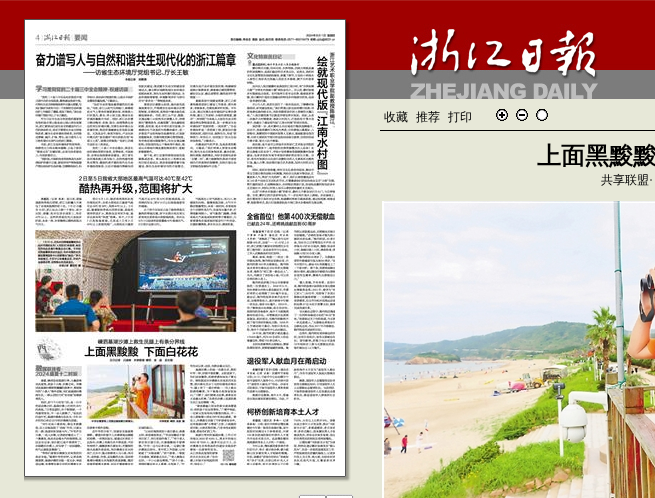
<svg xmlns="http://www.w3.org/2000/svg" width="655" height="498">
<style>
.a{font:500 12px WenQuanYi Zen Hei;fill:#000}
.b{font:bold 24px WenQuanYi Zen Hei;fill:#000}
.c{font:12px Liberation Serif;fill:#000}
</style>
<rect width="100%" height="100%" fill="#e7e8d8"/>
<image href="1.png" x="0" y="0" width="655" height="99"/>
<image href="2.png" x="408" y="24" width="192" height="75"/>
<image href="3.png" x="24" y="20" width="327" height="462"/>
<path fill="none" stroke="#555" d="M24.5 19.5h321v457H24.5z"/>
<image href="4.png" x="35" y="30" width="300" height="436"/>
<image href="5.png" x="346" y="19" width="5" height="80"/>
<image href="6.png" x="298" y="494" width="28" height="4"/>
<image href="7.png" x="326" y="494" width="28" height="4"/>
<image href="8.png" x="496" y="109" width="12" height="12"/>
<image href="9.png" x="516" y="109" width="12" height="12"/>
<image href="10.png" x="536" y="109" width="12" height="12"/>
<path fill="#000" d="M380 130h275v1H380z"/>
<image href="11.png" x="382" y="201" width="273" height="297"/>
<text class="a" x="384" y="121">收藏</text>
<text class="a" x="416" y="121">推荐</text>
<text class="a" x="448" y="121">打印</text>
<text class="b" x="537" y="164" word-spacing="-1">上面黑黢黢</text>
<text class="a" x="601" y="184">共享联盟</text>
<text class="c" x="649" y="184">·</text>
</svg>
